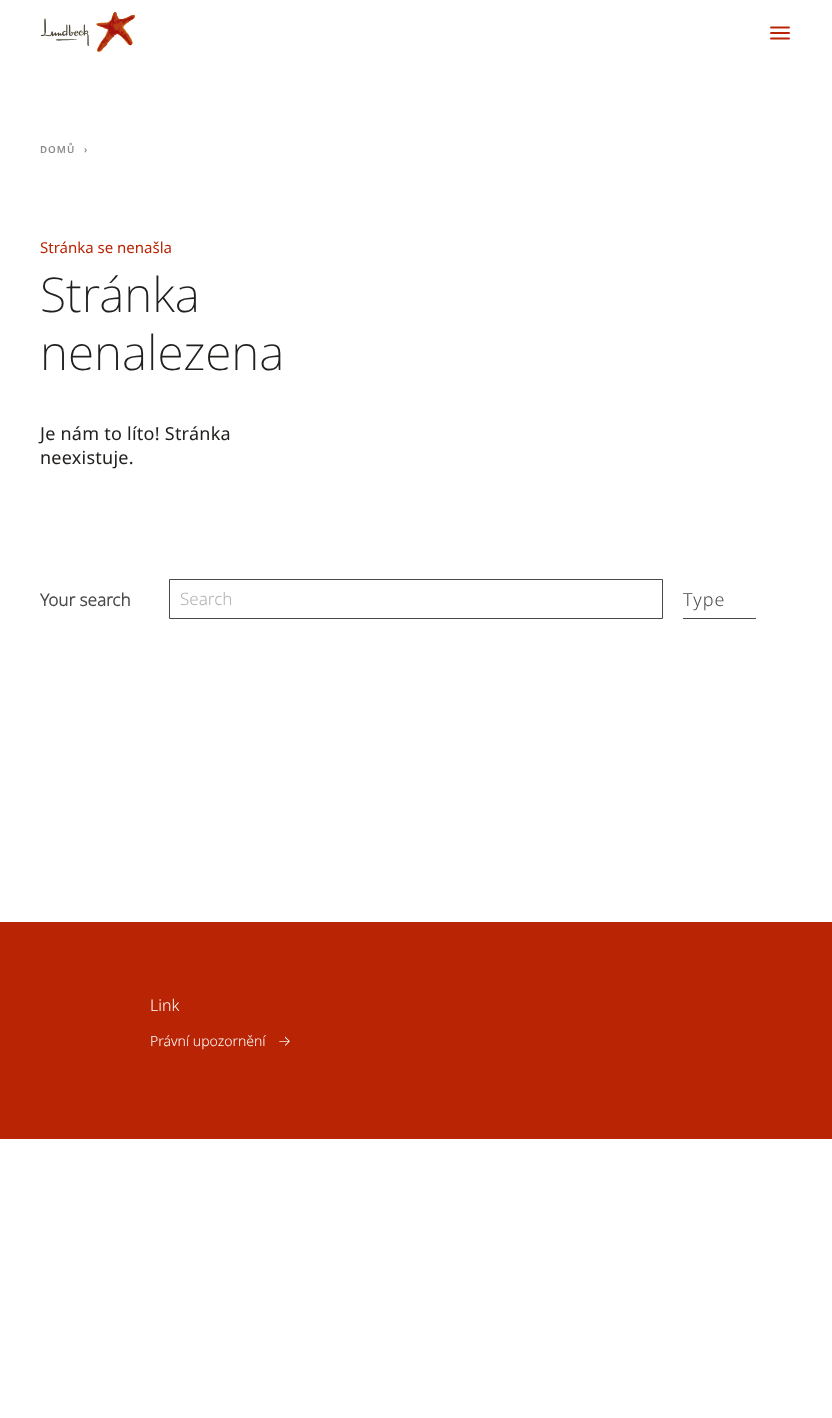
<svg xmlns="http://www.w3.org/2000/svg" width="832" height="1418">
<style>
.a{font:500 12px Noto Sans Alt;letter-spacing:1px;fill:#8c8c8c}
.b{font:15px Noto Sans;fill:#b92504}
.c{font:200 48px Noto Sans;fill:#22201f}
.d{font:18px Noto Sans;letter-spacing:0.25px;fill:#22201f}
.e{font:bold 17px Noto Sans;fill:#4a4a4a}
.f{font:300 17px Noto Sans;fill:#b2b2b2}
.g{font:300 18px Noto Sans;letter-spacing:1px;fill:#4a4a4a}
.h{font:300 16px Noto Sans;fill:#fff}
.i{font:300 14px Noto Sans;fill:#fff}
</style>
<rect width="100%" height="100%" fill="#fff"/>
<image href="1.png" x="40" y="12" width="95" height="40"/>
<path fill="none" stroke="#b92504" stroke-width="1.9" stroke-linecap="round" stroke-linejoin="round" d="M771 38.5h18m-18-5.5h18m-18-5.5h18"/>
<path fill="none" stroke="#4a4a4a" d="M169.5 579.5h493v39H169.5z"/>
<path fill="#4a4a4a" d="M683 618h73v1H683z"/>
<path fill="#b92504" d="M0 922h832v217H0z"/>
<image href="2.png" x="279" y="1036" width="11" height="10"/>
<text class="a" x="40" y="153">Domů</text>
<text class="a" x="84" y="153">›</text>
<text class="b" x="40" y="253">Stránka se nenašla</text>
<text class="c" x="40" y="312">Stránka</text>
<text class="c" x="40" y="370">nenalezena</text>
<text class="d" x="40" y="440">Je nám to líto! Stránka</text>
<text class="d" x="40" y="464">neexistuje.</text>
<text class="e" x="40" y="606">Your search</text>
<text class="f" x="180" y="605">Search</text>
<text class="g" x="683" y="606">Type</text>
<text class="h" x="150" y="1011">Link</text>
<text class="i" x="150" y="1046">Právní upozornění</text>
</svg>
